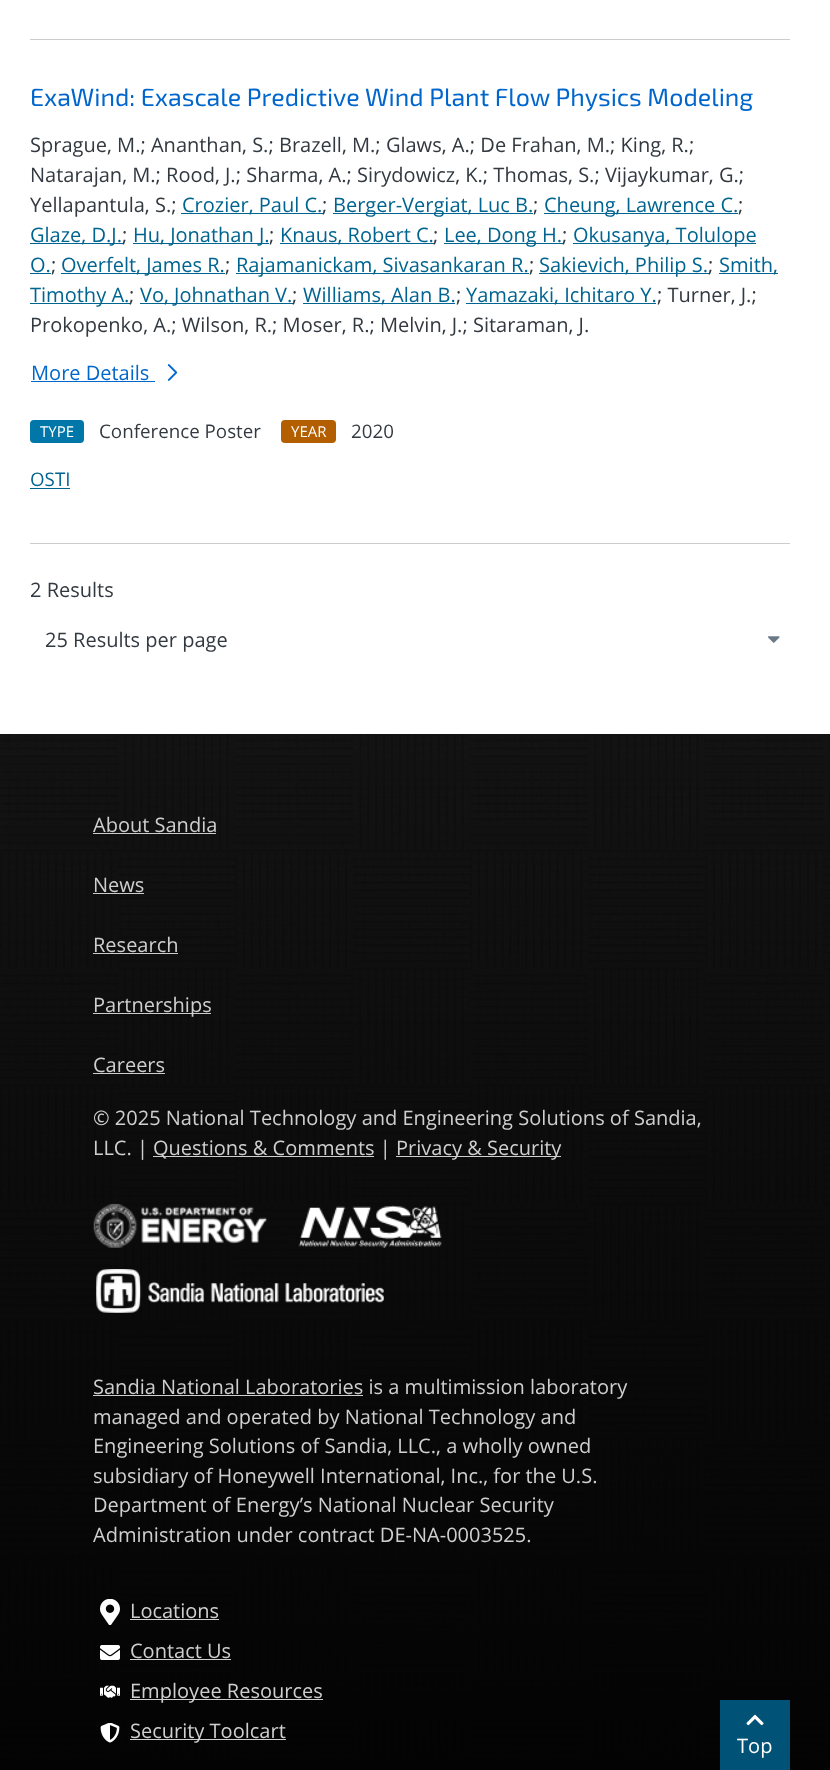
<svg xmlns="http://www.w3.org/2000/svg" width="830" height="1770">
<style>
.a{font:25px 'Exo 2';fill:#06c}
.b{font:20px Open Sans;fill:#323940}
.c{font:20px Open Sans;fill:#006490}
.d{font:20px Open Sans;fill:#06c}
.e{font:15px Open Sans;fill:#fff}
.f{font:18.75px Open Sans;fill:#323940}
.g{font:18.75px Open Sans;fill:#006490}
.h{font:20px Open Sans;fill:#cfcfcf}
.i{font:20px Open Sans;fill:#fff}
</style>
<rect width="100%" height="100%" fill="#fff"/>
<path fill="#ccc" d="M30 39h760v1H30z"/>
<path fill="#ccc" d="M30 543h760v1H30z"/>
<path fill="#006490" d="M181 213h142v1H181z"/>
<path fill="#006490" d="M333 213h200v1H333z"/>
<path fill="#006490" d="M544 213h194v1H544z"/>
<path fill="#006490" d="M30 243h93v1H30z"/>
<path fill="#006490" d="M133 243h136v1H133z"/>
<path fill="#006490" d="M280 243h154v1H280z"/>
<path fill="#006490" d="M444 243h119v1H444z"/>
<path fill="#006490" d="M573 243h183v1H573z"/>
<path fill="#006490" d="M30 273h21v1H30z"/>
<path fill="#006490" d="M61 273h164v1H61z"/>
<path fill="#006490" d="M236 273h293v1H236z"/>
<path fill="#006490" d="M539 273h170v1H539z"/>
<path fill="#006490" d="M719 273h59v1H719z"/>
<path fill="#006490" d="M30 303h100v1H30z"/>
<path fill="#006490" d="M140 303h153v1H140z"/>
<path fill="#006490" d="M303 303h152v1H303z"/>
<path fill="#006490" d="M466 303h190v1H466z"/>
<path fill="#06c" d="M31 381h124v1H31z"/>
<image href="1.png" x="167" y="364" width="11" height="17"/>
<rect fill="#0076a9" x="30" y="420" width="54" height="23" rx="4"/>
<rect fill="#b35f00" x="281" y="420" width="55" height="23" rx="4"/>
<path fill="#006490" d="M30 488h40v1H30z"/>
<image href="2.png" x="768" y="636" width="12" height="7"/>
<image href="3.png" x="0" y="734" width="830" height="1036"/>
<path fill="#ccc" d="M93 833h123v1H93z"/>
<path fill="#ccc" d="M93 893h51v1H93z"/>
<path fill="#ccc" d="M93 953h85v1H93z"/>
<path fill="#ccc" d="M93 1013h118v1H93z"/>
<path fill="#ccc" d="M93 1073h72v1H93z"/>
<path fill="#cfcfcf" d="M153 1156h221v1H153z"/>
<path fill="#cfcfcf" d="M396 1156h165v1H396z"/>
<image href="4.png" x="93" y="1203" width="174" height="45"/>
<image href="5.png" x="298" y="1205" width="144" height="43"/>
<image href="6.png" x="96" y="1269" width="288" height="44"/>
<path fill="#cfcfcf" d="M93 1395h270v1H93z"/>
<image href="7.png" x="100" y="1599" width="20" height="26"/>
<path fill="#cfcfcf" d="M130 1619h89v1H130z"/>
<image href="8.png" x="100" y="1645" width="20" height="15"/>
<path fill="#cfcfcf" d="M130 1659h101v1H130z"/>
<image href="9.png" x="100" y="1685" width="20" height="13"/>
<path fill="#cfcfcf" d="M130 1699h193v1H130z"/>
<image href="10.png" x="100" y="1723" width="20" height="20"/>
<path fill="#cfcfcf" d="M130 1739h156v1H130z"/>
<path fill="#005376" d="M720 1700h70v70H720z"/>
<image href="11.png" x="746" y="1714" width="18" height="12"/>
<text class="a" x="30" y="106">ExaWind: Exascale Predictive Wind Plant Flow Physics Modeling</text>
<text class="b" x="30" y="152">Sprague, M.; Ananthan, S.; Brazell, M.; Glaws, A.; De Frahan, M.; King, R.;</text>
<text class="b" x="30" y="182">Natarajan, M.; Rood, J.; Sharma, A.; Sirydowicz, K.; Thomas, S.; Vijaykumar, G.;</text>
<text class="b" x="30" y="212">Yellapantula, S.;</text>
<text class="c" x="182" y="212">Crozier, Paul C.</text>
<text class="b" x="322" y="212">;</text>
<text class="c" x="333" y="212">Berger-Vergiat, Luc B.</text>
<text class="b" x="533" y="212">;</text>
<text class="c" x="544" y="212">Cheung, Lawrence C.</text>
<text class="b" x="738" y="212">;</text>
<text class="c" x="30" y="242">Glaze, D.J.</text>
<text class="b" x="122" y="242">;</text>
<text class="c" x="133" y="242">Hu, Jonathan J.</text>
<text class="b" x="269" y="242">;</text>
<text class="c" x="280" y="242">Knaus, Robert C.</text>
<text class="b" x="433" y="242">;</text>
<text class="c" x="444" y="242">Lee, Dong H.</text>
<text class="b" x="562" y="242">;</text>
<text class="c" x="573" y="242">Okusanya, Tolulope</text>
<text class="c" x="30" y="272">O.</text>
<text class="b" x="51" y="272">;</text>
<text class="c" x="61" y="272">Overfelt, James R.</text>
<text class="b" x="225" y="272">;</text>
<text class="c" x="236" y="272">Rajamanickam, Sivasankaran R.</text>
<text class="b" x="529" y="272">;</text>
<text class="c" x="539" y="272">Sakievich, Philip S.</text>
<text class="b" x="708" y="272">;</text>
<text class="c" x="719" y="272">Smith,</text>
<text class="c" x="30" y="302">Timothy A.</text>
<text class="b" x="129" y="302">;</text>
<text class="c" x="140" y="302">Vo, Johnathan V.</text>
<text class="b" x="292" y="302">;</text>
<text class="c" x="303" y="302">Williams, Alan B.</text>
<text class="b" x="456" y="302">;</text>
<text class="c" x="466" y="302">Yamazaki, Ichitaro Y.</text>
<text class="b" x="657" y="302">; Turner, J.;</text>
<text class="b" x="30" y="332">Prokopenko, A.; Wilson, R.; Moser, R.; Melvin, J.; Sitaraman, J.</text>
<text class="d" x="31" y="380">More Details</text>
<text class="e" x="40" y="437">TYPE</text>
<text class="f" x="99" y="438">Conference Poster</text>
<text class="e" x="291" y="437">YEAR</text>
<text class="f" x="351" y="438">2020</text>
<text class="g" x="30" y="486">OSTI</text>
<text class="b" x="30" y="597">2 Results</text>
<text class="b" x="45" y="647">25 Results per page</text>
<text class="h" x="93" y="832">About Sandia</text>
<text class="h" x="93" y="892">News</text>
<text class="h" x="93" y="952">Research</text>
<text class="h" x="93" y="1012">Partnerships</text>
<text class="h" x="93" y="1072">Careers</text>
<text class="h" x="93" y="1125">© 2025 National Technology and Engineering Solutions of Sandia,</text>
<text class="h" x="93" y="1155">LLC. |</text>
<text class="h" x="153" y="1155">Questions &amp; Comments |</text>
<text class="h" x="396" y="1155">Privacy &amp; Security</text>
<text class="h" x="93" y="1394">Sandia National Laboratories is a multimission laboratory</text>
<text class="h" x="93" y="1424">managed and operated by National Technology and</text>
<text class="h" x="93" y="1453">Engineering Solutions of Sandia, LLC., a wholly owned</text>
<text class="h" x="93" y="1483">subsidiary of Honeywell International, Inc., for the U.S.</text>
<text class="h" x="93" y="1512">Department of Energy’s National Nuclear Security</text>
<text class="h" x="93" y="1542">Administration under contract DE-NA-0003525.</text>
<text class="h" x="130" y="1618">Locations</text>
<text class="h" x="130" y="1658">Contact Us</text>
<text class="h" x="130" y="1698">Employee Resources</text>
<text class="h" x="130" y="1738">Security Toolcart</text>
<text class="i" x="737" y="1753">Top</text>
</svg>
